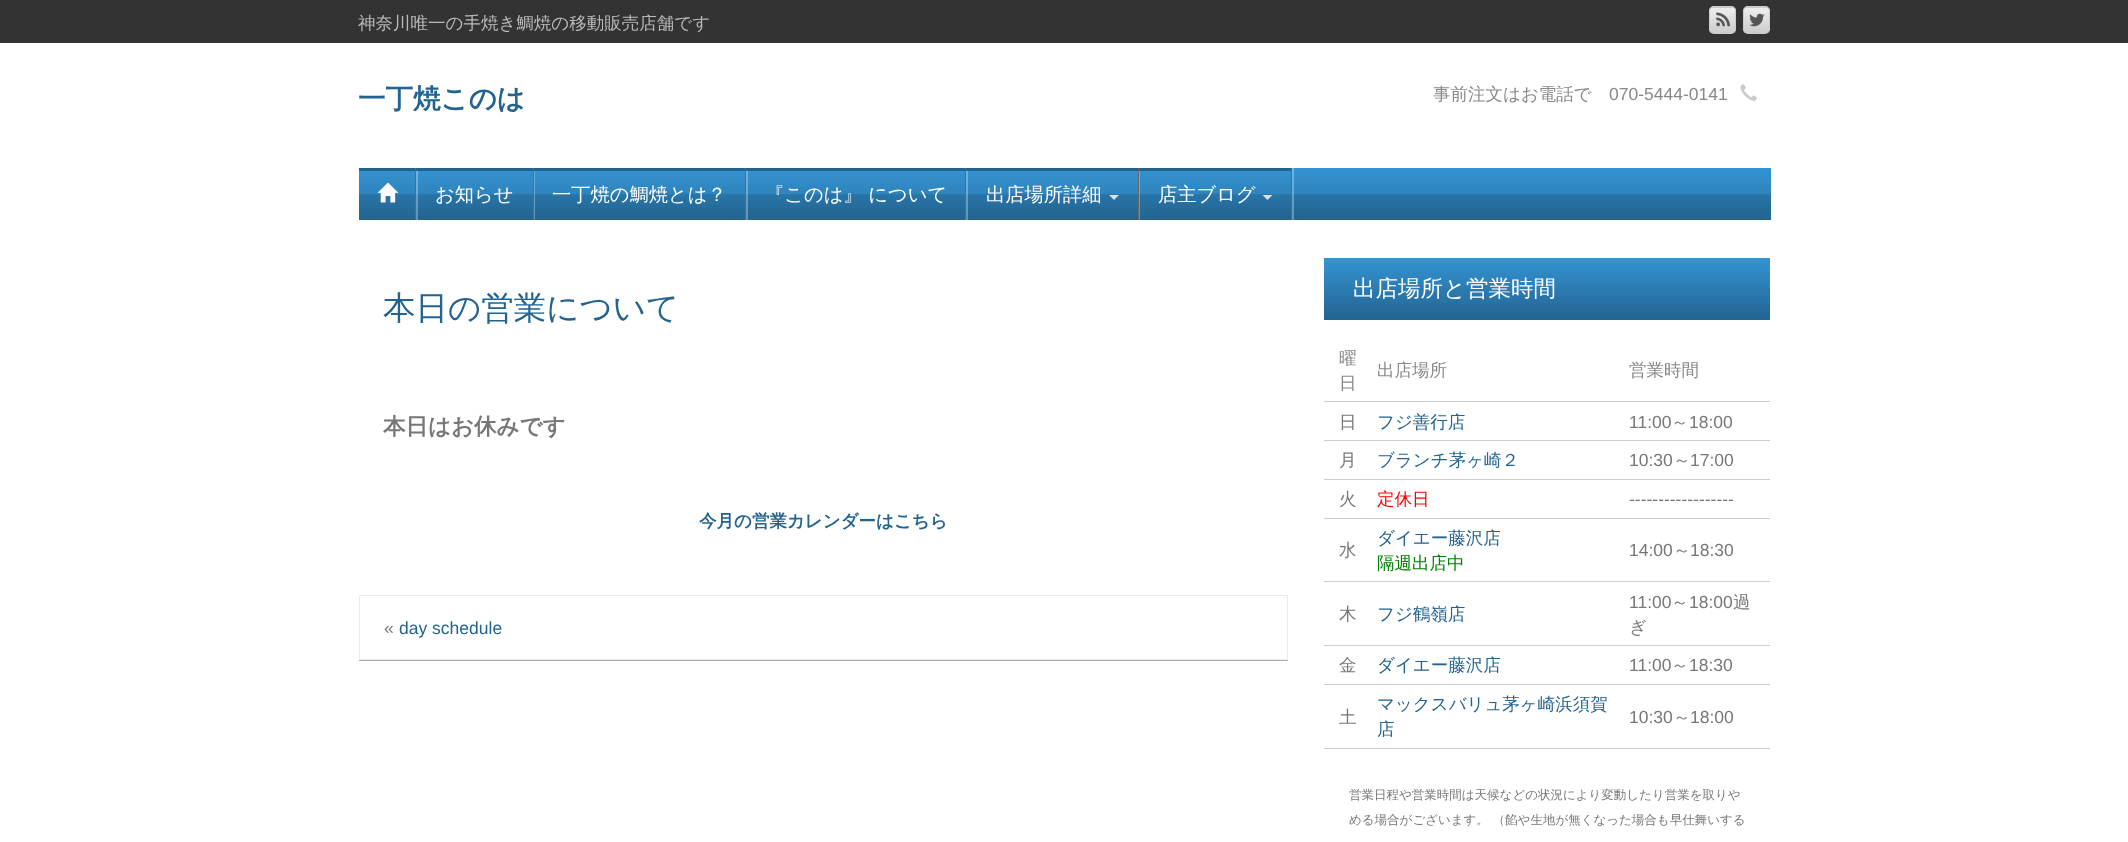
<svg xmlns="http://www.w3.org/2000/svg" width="2128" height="842">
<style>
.a{font:500 17.5px WenQuanYi Zen Hei;fill:#bababa}
.b{font:bold 27.5px WenQuanYi Zen Hei;fill:#236390}
.c{font:500 17.5px WenQuanYi Zen Hei;fill:#888}
.d{font:17.5px Liberation Sans;fill:#888}
.e{font:500 19.25px WenQuanYi Zen Hei;fill:#fff}
.f{font:500 32.5px WenQuanYi Zen Hei;fill:#236390}
.g{font:bold 22.5px WenQuanYi Zen Hei;fill:#777}
.h{font:bold 17.5px WenQuanYi Zen Hei;fill:#236390}
.i{font:17.5px Liberation Sans;fill:#777}
.j{font:17.5px Liberation Sans;fill:#236390}
.k{font:500 22.5px WenQuanYi Zen Hei;fill:#fff}
.l{font:500 17.5px WenQuanYi Zen Hei;fill:#777}
.m{font:500 17.5px WenQuanYi Zen Hei;fill:#236390}
.n{font:500 17.5px WenQuanYi Zen Hei;fill:#f00}
.o{font:500 17.5px WenQuanYi Zen Hei;fill:#008000}
.p{font:500 12.5px WenQuanYi Zen Hei;fill:#777}
</style>
<defs>
<clipPath id="clip1"><rect x="1709" y="6" width="27" height="28" rx="5"/></clipPath>
<linearGradient id="g1" gradientUnits="userSpaceOnUse" x1="1723" y1="-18" x2="1723" y2="7.5"><stop offset="0" stop-color="#eee"/><stop offset="1" stop-color="#ccc"/></linearGradient>
<linearGradient id="g2" gradientUnits="userSpaceOnUse" x1="1723" y1="7.5" x2="1723" y2="33"><stop offset="0" stop-color="#eee"/><stop offset="1" stop-color="#ccc"/></linearGradient>
<clipPath id="clip2"><rect x="1743" y="6" width="27" height="28" rx="5"/></clipPath>
<linearGradient id="g3" gradientUnits="userSpaceOnUse" x1="1756" y1="-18" x2="1756" y2="7.5"><stop offset="0" stop-color="#eee"/><stop offset="1" stop-color="#ccc"/></linearGradient>
<linearGradient id="g4" gradientUnits="userSpaceOnUse" x1="1756" y1="7.5" x2="1756" y2="33"><stop offset="0" stop-color="#eee"/><stop offset="1" stop-color="#ccc"/></linearGradient>
<linearGradient id="g5" gradientUnits="userSpaceOnUse" x1="1065" y1="167" x2="1065" y2="220"><stop offset="0" stop-color="#54b7f9"/><stop offset="0.01" stop-color="#3494d3"/><stop offset="0.51" stop-color="#2f84bc"/><stop offset="0.52" stop-color="#2875a8"/><stop offset="1" stop-color="#236390"/></linearGradient>
<linearGradient id="g6" gradientUnits="userSpaceOnUse" x1="1065" y1="167" x2="1065" y2="220"><stop offset="0" stop-color="#87cdfb"/><stop offset="0.01" stop-color="#71b4e0"/><stop offset="0.51" stop-color="#6da9d0"/><stop offset="0.52" stop-color="#699ec2"/><stop offset="1" stop-color="#6592b1"/></linearGradient>
<linearGradient id="g7" gradientUnits="userSpaceOnUse" x1="1547" y1="257" x2="1547" y2="320"><stop offset="0" stop-color="#54b7f9"/><stop offset="0.02" stop-color="#3494d3"/><stop offset="1" stop-color="#236390"/></linearGradient>
</defs>
<rect width="100%" height="100%" fill="#fff"/>
<path fill="#333" d="M0 0h2128v43H0z"/>
<g clip-path="url(#clip1)">
<path fill="url(#g1)" d="M1709 6h27v2H1709z"/>
<path fill="url(#g2)" d="M1709 8h27v25H1709z"/>
</g>
<rect fill="none" stroke="#ccc" x="1709.5" y="6.5" width="26" height="27" rx="4.5"/>
<image href="1.png" x="1716" y="12" width="14" height="15"/>
<g clip-path="url(#clip2)">
<path fill="url(#g3)" d="M1743 6h27v2H1743z"/>
<path fill="url(#g4)" d="M1743 8h27v25H1743z"/>
</g>
<rect fill="none" stroke="#ccc" x="1743.5" y="6.5" width="26" height="27" rx="4.5"/>
<image href="2.png" x="1749" y="13" width="16" height="14"/>
<image href="3.png" x="1740" y="84" width="18" height="17"/>
<path fill="url(#g5)" d="M359 168h1412v52H359z"/>
<path fill="url(#g6)" d="M1292 168h2v52H1292z"/>
<path fill="url(#g6)" d="M1139 168h1v52H1139z"/>
<path fill="url(#g6)" d="M966 168h2v52H966z"/>
<path fill="url(#g6)" d="M746 168h2v52H746z"/>
<path fill="url(#g6)" d="M534 168h1v52H534z"/>
<path fill="url(#g6)" d="M416 168h2v52H416z"/>
<path fill="#666" d="M415 168h1v52H415z"/>
<path fill="#236390" d="M359 168h56v3H359z"/>
<image href="4.png" x="377" y="182" width="22" height="21"/>
<path fill="#666" d="M533 168h1v52H533z"/>
<path fill="#236390" d="M416 168h117v3H416z"/>
<path fill="#666" d="M745 168h1v52H745z"/>
<path fill="#236390" d="M534 168h211v3H534z"/>
<path fill="#666" d="M965 168h1v52H965z"/>
<path fill="#236390" d="M746 168h219v3H746z"/>
<path fill="#666" d="M1138 168h1v52H1138z"/>
<path fill="#236390" d="M966 168h172v3H966z"/>
<path fill="#ddd" d="M1109 195h10l-5 5z"/>
<path fill="#666" d="M1291 168h1v52H1291z"/>
<path fill="#236390" d="M1139 168h152v3H1139z"/>
<path fill="#ddd" d="M1262.5 195h10l-5 5z"/>
<path fill="#adadad" d="M359 660v1h929v-65v64z"/>
<path fill="none" stroke="#eaeaea" d="M359.5 595.5h928v64H359.5z"/>
<path fill="url(#g7)" d="M1324 258h446v62H1324z"/>
<path fill="#ccc" d="M1324 401h446v1H1324z"/>
<path fill="#ccc" d="M1324 440h446v1H1324z"/>
<path fill="#ccc" d="M1324 479h446v1H1324z"/>
<path fill="#ccc" d="M1324 518h446v1H1324z"/>
<path fill="#ccc" d="M1324 581h446v1H1324z"/>
<path fill="#ccc" d="M1324 645h446v1H1324z"/>
<path fill="#ccc" d="M1324 684h446v1H1324z"/>
<path fill="#ccc" d="M1324 748h446v1H1324z"/>
<text class="a" x="358" y="29">神奈川唯一の手焼き鯛焼の移動販売店舗です</text>
<text class="b" x="358" y="108">一丁焼このは</text>
<text class="c" x="1433" y="100">事前注文はお電話で</text>
<text class="d" x="1609" y="100">070-5444-0141</text>
<text class="e" x="435" y="201">お知らせ</text>
<text class="e" x="552" y="201">一丁焼の鯛焼とは？</text>
<text class="e" x="765" y="201">『このは』 について</text>
<text class="e" x="986" y="201">出店場所詳細</text>
<text class="e" x="1158" y="201">店主ブログ</text>
<text class="f" x="383" y="319">本日の営業について</text>
<text class="g" x="383" y="434">本日はお休みです</text>
<text class="h" x="699" y="527">今月の営業カレンダーはこちら</text>
<text class="i" x="384" y="634">«</text>
<text class="j" x="399" y="634">day schedule</text>
<text class="k" x="1353" y="296">出店場所と営業時間</text>
<text class="c" x="1339" y="364">曜</text>
<text class="c" x="1339" y="389">日</text>
<text class="c" x="1377" y="376">出店場所</text>
<text class="c" x="1629" y="376">営業時間</text>
<text class="l" x="1339" y="428">日</text>
<text class="m" x="1377" y="428">フジ善行店</text>
<text class="i" x="1629" y="428">11:00</text>
<text class="l" x="1671" y="428">～</text>
<text class="i" x="1689" y="428">18:00</text>
<text class="l" x="1339" y="466">月</text>
<text class="m" x="1377" y="466">ブランチ茅ヶ崎２</text>
<text class="i" x="1629" y="466">10:30</text>
<text class="l" x="1673" y="466">～</text>
<text class="i" x="1690" y="466">17:00</text>
<text class="l" x="1339" y="505">火</text>
<text class="n" x="1377" y="505">定休日</text>
<text class="i" x="1629" y="505">------------------</text>
<text class="l" x="1339" y="556">水</text>
<text class="m" x="1377" y="544">ダイエー藤沢店</text>
<text class="o" x="1377" y="569">隔週出店中</text>
<text class="i" x="1629" y="556">14:00</text>
<text class="l" x="1673" y="556">～</text>
<text class="i" x="1690" y="556">18:30</text>
<text class="l" x="1339" y="620">木</text>
<text class="m" x="1377" y="620">フジ鶴嶺店</text>
<text class="i" x="1629" y="608">11:00</text>
<text class="l" x="1671" y="608">～</text>
<text class="i" x="1689" y="608">18:00</text>
<text class="l" x="1733" y="608">過</text>
<text class="l" x="1629" y="633">ぎ</text>
<text class="l" x="1339" y="671">金</text>
<text class="m" x="1377" y="671">ダイエー藤沢店</text>
<text class="i" x="1629" y="671">11:00</text>
<text class="l" x="1671" y="671">～</text>
<text class="i" x="1689" y="671">18:30</text>
<text class="l" x="1339" y="723">土</text>
<text class="m" x="1377" y="710">マックスバリュ茅ヶ崎浜須賀</text>
<text class="m" x="1377" y="735">店</text>
<text class="i" x="1629" y="723">10:30</text>
<text class="l" x="1673" y="723">～</text>
<text class="i" x="1690" y="723">18:00</text>
<text class="p" x="1349" y="799">営業日程や営業時間は天候などの状況により変動したり営業を取りや</text>
<text class="p" x="1349" y="824">める場合がございます。 （餡や生地が無くなった場合も早仕舞いする</text>
</svg>
